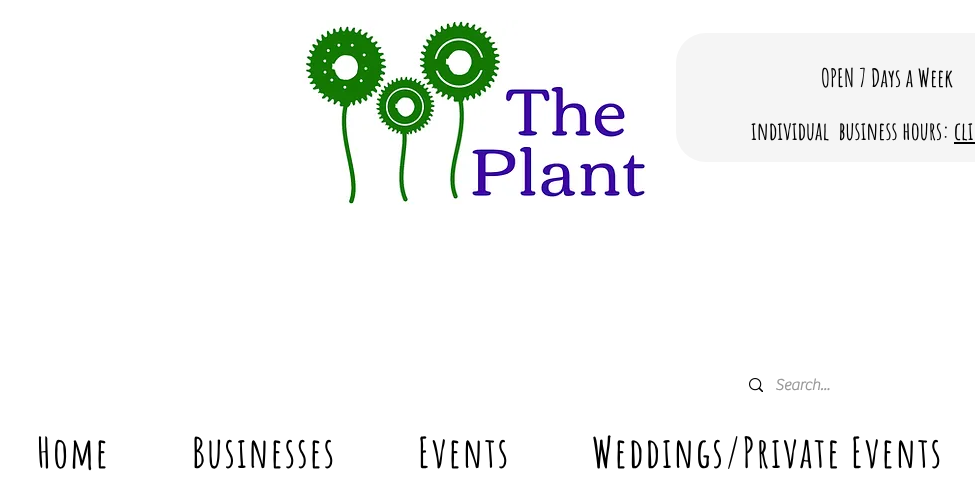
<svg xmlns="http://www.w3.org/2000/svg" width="975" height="483">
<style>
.a{font:bold 25px Amatic SC;fill:#000}
.b{font:bold 16px 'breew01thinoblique';fill:#999}
.c{font:bold 42px Amatic SC;letter-spacing:2.1px;fill:#000}
</style>
<rect width="100%" height="100%" fill="#fff"/>
<image href="1.png" x="302" y="20" width="344" height="185"/>
<rect fill="#f5f5f5" x="676" y="33" width="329" height="129" rx="30"/>
<path fill="#000" d="M954 142h21v2H954z"/>
<image href="2.png" x="749" y="378" width="14" height="14"/>
<text class="a" x="821" y="87">OPEN 7 Days a Week</text>
<text class="a" xml:space="preserve" x="751" y="140">individual  business hours: cli</text>
<text class="b" x="775" y="390">Search...</text>
<text class="c" x="37" y="468">Home</text>
<text class="c" x="192" y="468">Businesses</text>
<text class="c" x="418" y="468">Events</text>
<text class="c" x="592" y="468">Weddings/Private Events</text>
</svg>
